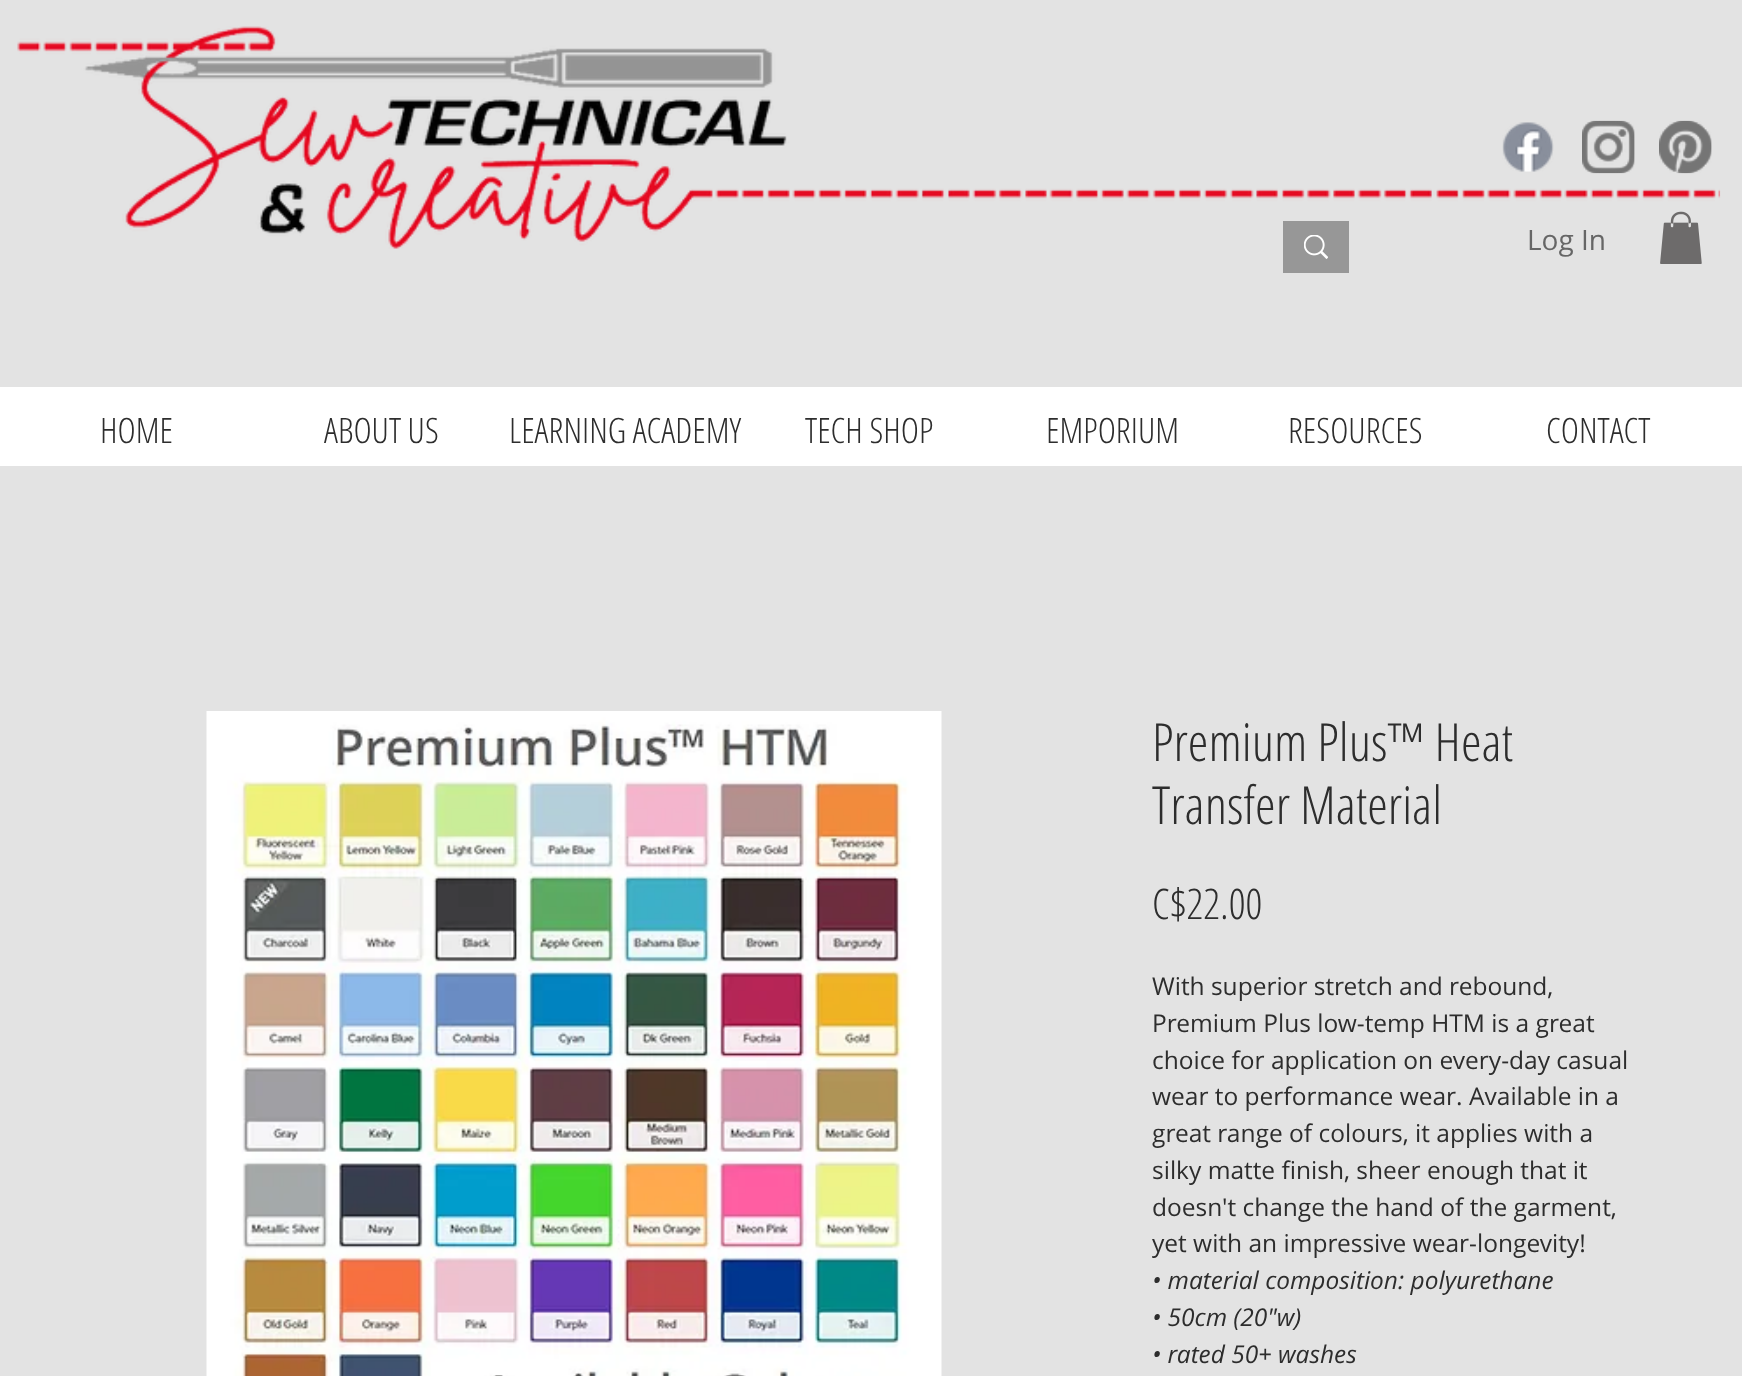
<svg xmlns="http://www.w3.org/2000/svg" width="1742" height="1376">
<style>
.a{font:28px Open Sans;fill:#666}
.b{font:300 35px Open Sans Condensed;fill:#2d2d2d}
.c{font:300 52.5px Open Sans Condensed;fill:#2d2d2d}
.d{font:300 42px Open Sans Condensed;fill:#2d2d2d}
.e{font:24.5px Open Sans;fill:#2d2d2d}
.f{font:italic 24.5px Open Sans;fill:#2d2d2d}
</style>
<defs>
<clipPath id="clip1"><path d="M1152 968h490v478H1152z"/></clipPath>
</defs>
<rect width="100%" height="100%" fill="#e3e3e3"/>
<image href="1.png" x="17" y="26" width="1704" height="223"/>
<image href="2.png" x="1502" y="122" width="52" height="50"/>
<image href="3.png" x="1582" y="120" width="53" height="54"/>
<image href="4.png" x="1659" y="120" width="53" height="54"/>
<path fill="#979797" d="M1283 221h66v52H1283z"/>
<image href="5.png" x="1304" y="235" width="24" height="24"/>
<image href="6.png" x="1660" y="211" width="42" height="53"/>
<path fill="#fff" d="M0 387h1742v79H0z"/>
<image href="7.png" x="206" y="711" width="736" height="665"/>
<text class="a" x="1527" y="250">Log In</text>
<text class="b" x="100" y="443">HOME</text>
<text class="b" x="324" y="443">ABOUT US</text>
<text class="b" x="509" y="443">LEARNING ACADEMY</text>
<text class="b" x="805" y="443">TECH SHOP</text>
<text class="b" x="1046" y="443">EMPORIUM</text>
<text class="b" x="1288" y="443">RESOURCES</text>
<text class="b" x="1546" y="443">CONTACT</text>
<text class="c" x="1152" y="761">Premium Plus™ Heat</text>
<text class="c" x="1152" y="824">Transfer Material</text>
<text class="d" x="1152" y="919">C$22.00</text>
<text class="e" x="1152" y="995">With superior stretch and rebound,</text>
<text class="e" x="1152" y="1032">Premium Plus low-temp HTM is a great</text>
<text class="e" x="1152" y="1069">choice for application on every-day casual</text>
<text class="e" x="1152" y="1105">wear to performance wear. Available in a</text>
<text class="e" x="1152" y="1142">great range of colours, it applies with a</text>
<text class="e" x="1152" y="1179">silky matte finish, sheer enough that it</text>
<text class="e" x="1152" y="1216">doesn't change the hand of the garment,</text>
<g clip-path="url(#clip1)">
<text class="e" x="1152" y="1252">yet with an impressive wear-longevity!</text>
</g>
<text class="f" x="1152" y="1289">• material composition: polyurethane</text>
<text class="f" x="1152" y="1326">• 50cm (20"w)</text>
<text class="f" x="1152" y="1363">• rated 50+ washes</text>
</svg>
